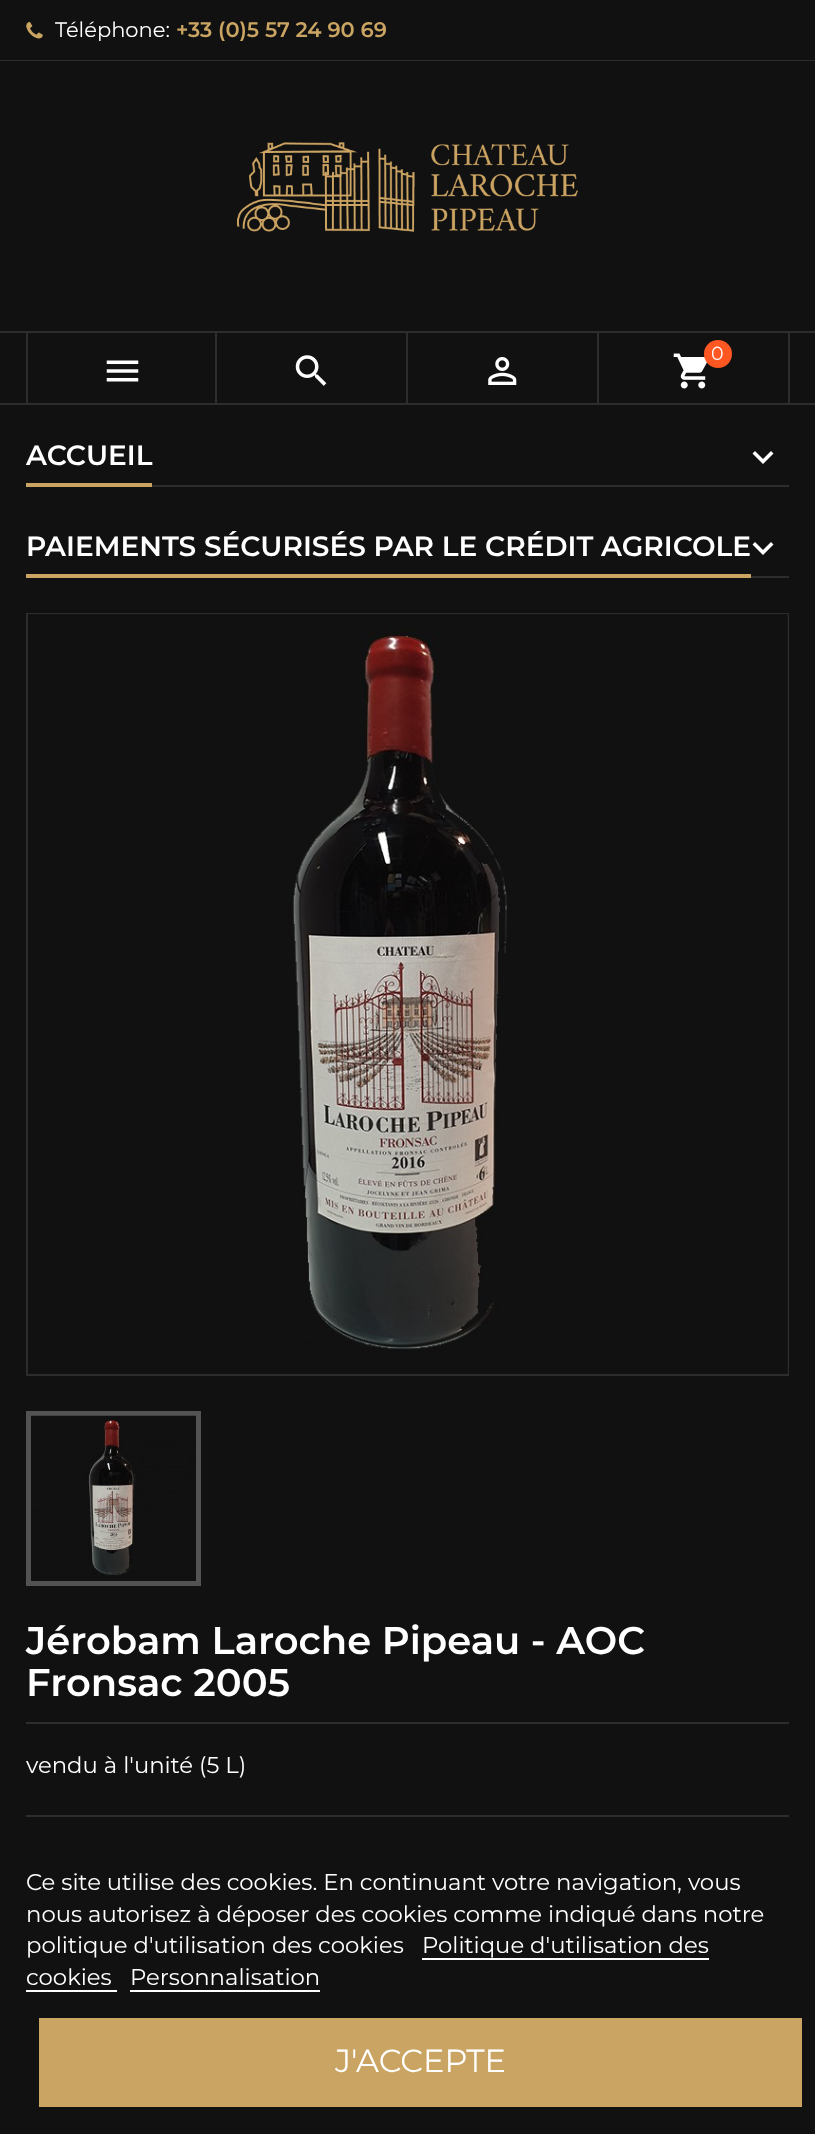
<svg xmlns="http://www.w3.org/2000/svg" width="815" height="2134">
<style>
.a{font:21px Montserrat;fill:#fff}
.b{font:600 21px Montserrat;fill:#caa462}
.c{font:19px Montserrat;fill:#fff}
.d{font:22.75px Montserrat;fill:#fff}
.e{font:32px Montserrat;fill:#fff}
.f{font:600 28px Montserrat;fill:#fff}
.g{font:600 38.5px Montserrat;fill:#fff}
</style>
<rect width="100%" height="100%" fill="#111"/>
<path fill="#2d2d2d" d="M0 60h815v1H0z"/>
<image href="1.png" x="26" y="22" width="17" height="17"/>
<path fill="#2d2d2d" d="M0 331h815v2H0z"/>
<path fill="#2d2d2d" d="M0 403h815v2H0z"/>
<path fill="#2d2d2d" d="M215 333h2v70H215z"/>
<path fill="#2d2d2d" d="M26 333h2v70H26z"/>
<image href="2.png" x="106" y="360" width="33" height="22"/>
<path fill="#2d2d2d" d="M406 333h2v70H406z"/>
<image href="3.png" x="295" y="355" width="32" height="31"/>
<path fill="#2d2d2d" d="M597 333h2v70H597z"/>
<image href="4.png" x="488" y="357" width="29" height="28"/>
<path fill="#2d2d2d" d="M788 333h2v70H788z"/>
<image href="5.png" x="673" y="353" width="35" height="36"/>
<circle fill="#ff5722" cx="718" cy="354" r="14"/>
<image href="6.png" x="237" y="142" width="341" height="90"/>
<path fill="#fff" d="M422 1958h287v2H422z"/>
<path fill="#fff" d="M26 1990h91v2H26z"/>
<path fill="#fff" d="M130 1990h190v2H130z"/>
<path fill="#caa462" d="M39 2018h763v89H39z"/>
<path fill="#2d2d2d" d="M152 485h637v2H152z"/>
<path fill="#caa462" d="M26 483h126v4H26z"/>
<path fill="#fff" d="M755 451l8 8l8-8l2.5 2.5l-10.5 10.5l-10.5-10.5z"/>
<path fill="#2d2d2d" d="M751 576h38v2H751z"/>
<path fill="#caa462" d="M26 574h725v4H26z"/>
<path fill="#fff" d="M755 542l8 8l8-8l2.5 2.5l-10.5 10.5l-10.5-10.5z"/>
<path fill="none" stroke="#2d2d2d" stroke-width="2" d="M27 614h761v761H27z"/>
<path fill="#1c1c1c" d="M28 614h760v760H28z"/>
<image href="7.png" x="28" y="614" width="760" height="760"/>
<path fill="none" stroke="#535353" stroke-width="5" d="M28.5 1413.5h170v170H28.5z"/>
<image href="8.png" x="31" y="1415" width="165" height="163"/>
<path fill="#2d2d2d" d="M26 1722h763v2H26z"/>
<path fill="#2d2d2d" d="M26 1815h763v2H26z"/>
<text class="a" x="55" y="37">Téléphone:</text>
<text class="b" x="176" y="37">+33 (0)5 57 24 90 69</text>
<text class="c" x="711" y="360">0</text>
<text class="d" x="26" y="1890">Ce site utilise des cookies. En continuant votre navigation, vous</text>
<text class="d" x="26" y="1922">nous autorisez à déposer des cookies comme indiqué dans notre</text>
<text class="d" x="26" y="1953">politique d'utilisation des cookies</text>
<text class="d" x="422" y="1953">Politique d'utilisation des</text>
<text class="d" x="26" y="1985">cookies</text>
<text class="d" x="130" y="1985">Personnalisation</text>
<text class="e" x="335" y="2072">J'ACCEPTE</text>
<text class="f" x="26" y="465">ACCUEIL</text>
<text class="f" x="26" y="556">PAIEMENTS SÉCURISÉS PAR LE CRÉDIT AGRICOLE</text>
<text class="g" x="26" y="1654">Jérobam Laroche Pipeau - AOC</text>
<text class="g" x="26" y="1696">Fronsac 2005</text>
<text class="d" x="26" y="1773">vendu à l'unité (5 L)</text>
</svg>
